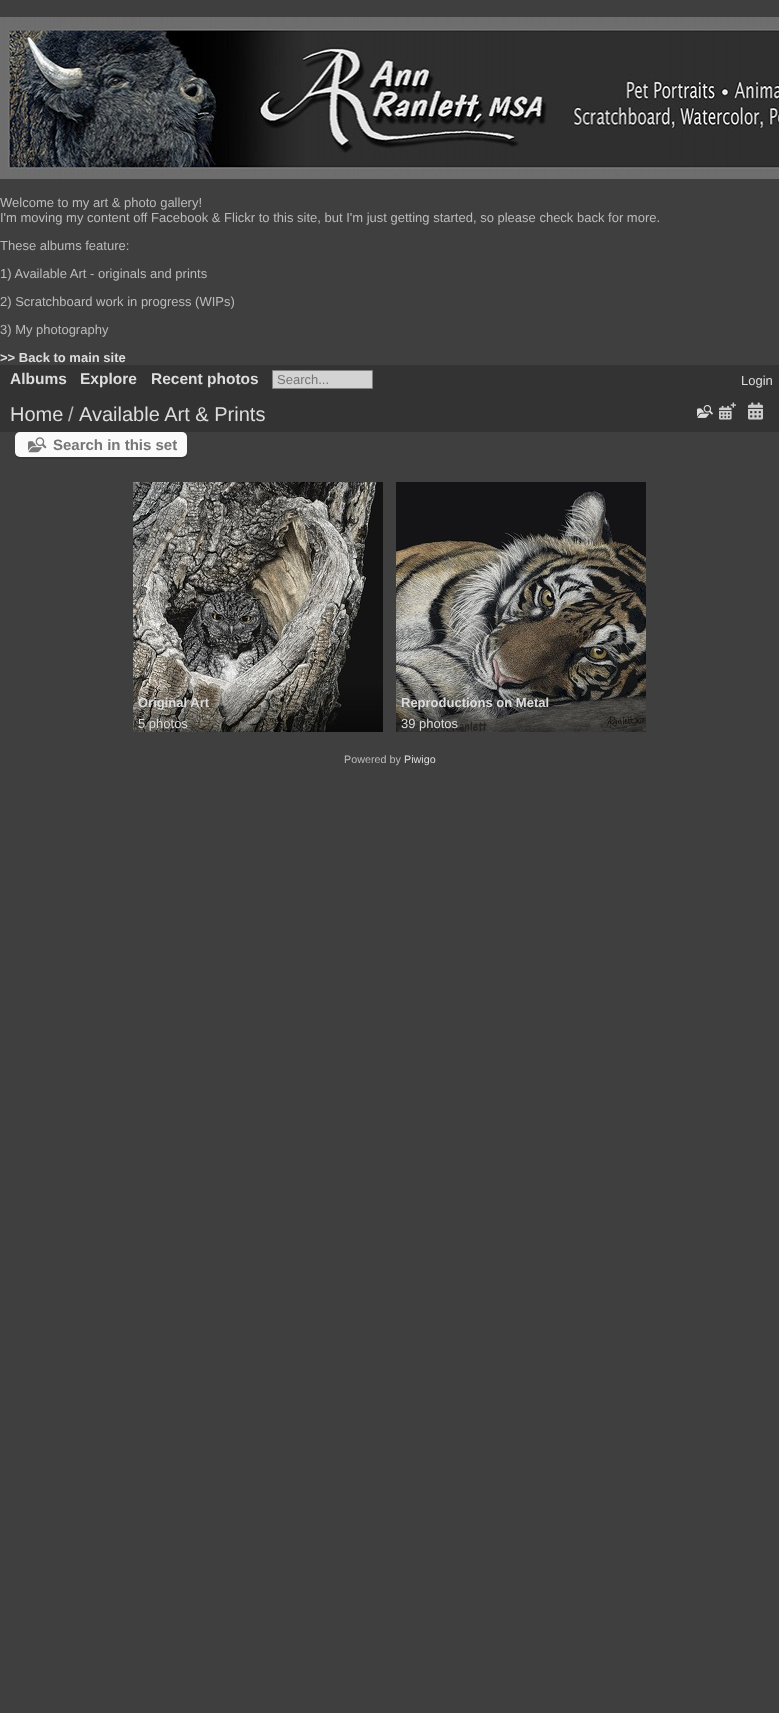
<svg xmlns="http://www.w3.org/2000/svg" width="779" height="1713">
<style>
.a{font:13px Liberation Sans;fill:#bbb}
.b{font:bold 13px Liberation Sans;fill:#ddd}
.c{font:bold 15.5px Liberation Sans;fill:#ddd}
.d{font:13px Liberation Sans;fill:#757575}
.e{font:13px Liberation Sans;fill:#ddd}
.f{font:20px Liberation Sans;fill:#ddd}
.g{font:20px Liberation Sans;fill:#bbb}
.h{font:bold 15px Liberation Sans;fill:#757575}
.i{font:10.75px Liberation Sans;fill:#bbb}
.j{font:10.75px Liberation Sans;fill:#ddd}
</style>
<rect width="100%" height="100%" fill="#3f3f3f"/>
<image href="1.png" x="0" y="17" width="779" height="162"/>
<path fill="#333" d="M0 365h779v67H0z"/>
<path fill="#d3d3d3" stroke="#808080" d="M272.5 370.5h100v18H272.5z"/>
<image href="2.png" x="697" y="405" width="16" height="13"/>
<image href="3.png" x="719" y="402" width="17" height="18"/>
<image href="4.png" x="748" y="402" width="15" height="18"/>
<path fill="#363636" d="M15 452v2c0 3 2 5 5 5h162c3 0 5-2 5-5v-2c0 3-2 5-5 5h-162c-3 0-5-2-5-5z"/>
<rect fill="#fafafa" x="15" y="432" width="172" height="25" rx="5"/>
<image href="5.png" x="28" y="437" width="19" height="16"/>
<image href="6.png" x="133" y="482" width="250" height="250"/>
<image href="7.png" x="396" y="482" width="250" height="250"/>
<text class="a" x="0" y="207">Welcome to my art &amp; photo gallery!</text>
<text class="a" x="0" y="222">I'm moving my content off Facebook &amp; Flickr to this site, but I'm just getting started, so please check back for more.</text>
<text class="a" x="0" y="250">These albums feature:</text>
<text class="a" x="0" y="278">1) Available Art - originals and prints</text>
<text class="a" x="0" y="306">2) Scratchboard work in progress (WIPs)</text>
<text class="a" x="0" y="334">3) My photography</text>
<text class="b" x="0" y="362">&gt;&gt; Back to main site</text>
<text class="c" x="10" y="384">Albums</text>
<text class="c" x="80" y="384">Explore</text>
<text class="c" x="151" y="384">Recent photos</text>
<text class="d" x="277" y="384">Search...</text>
<text class="e" x="741" y="385">Login</text>
<text class="f" x="10" y="421">Home</text>
<text class="g" x="68" y="421">/</text>
<text class="f" x="79" y="421">Available Art &amp; Prints</text>
<text class="h" x="53" y="450">Search in this set</text>
<text class="b" x="138" y="707">Original Art</text>
<text class="e" x="138" y="728">5 photos</text>
<text class="b" x="401" y="707">Reproductions on Metal</text>
<text class="e" x="401" y="728">39 photos</text>
<text class="i" x="344" y="763">Powered by</text>
<text class="j" x="404" y="763">Piwigo</text>
</svg>
